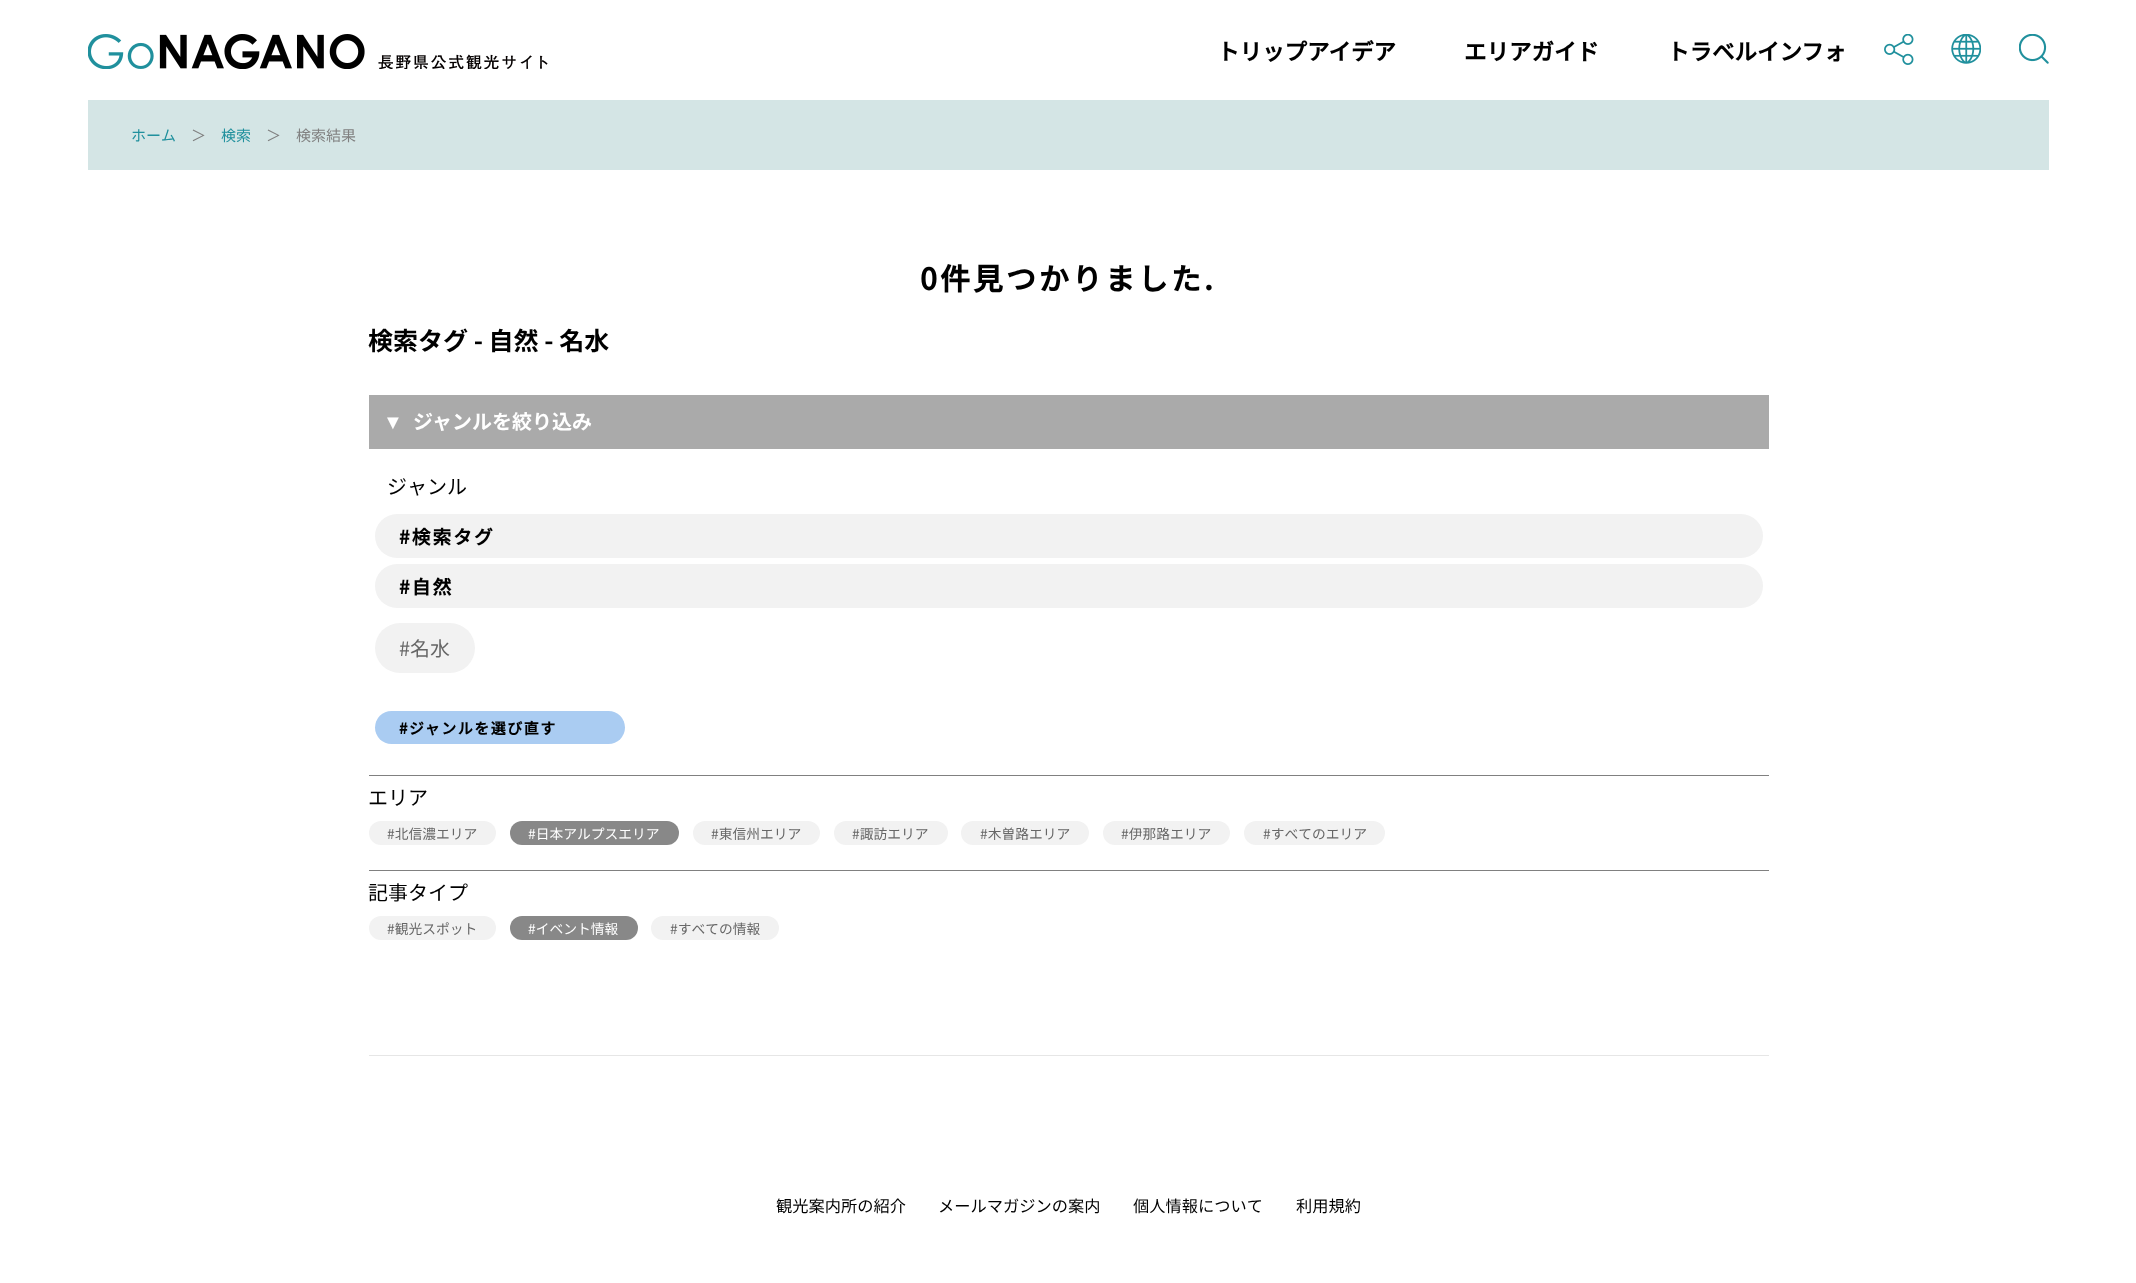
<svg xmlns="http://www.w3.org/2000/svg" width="2136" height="1283">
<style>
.a{font:bold 22.5px Noto Sans CJK JP;fill:#000}
.b{font:15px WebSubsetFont;fill:#20909d}
.c{font:15px WebSubsetFont;fill:#808080}
.d{font:bold 30px Noto Sans CJK JP;letter-spacing:3px;fill:#000}
.e{font:bold 25px 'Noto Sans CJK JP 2';fill:#000}
.f{font:bold 20px Liberation Serif;fill:#fff}
.g{font:bold 20px 'Noto Sans CJK JP 2';fill:#fff}
.h{font:20px WebSubsetFont;fill:#000}
.i{font:bold 18.75px Noto Sans CJK JP;letter-spacing:2px;fill:#000}
.j{font:20px WebSubsetFont;fill:#666}
.k{font:bold 15px Noto Sans CJK JP;letter-spacing:1.5px;fill:#000}
.l{font:13.75px WebSubsetFont;fill:#666}
.m{font:13.75px WebSubsetFont;fill:#fff}
.n{font:16.25px WebSubsetFont;fill:#000}
</style>
<rect width="100%" height="100%" fill="#fff"/>
<image href="1.png" x="88" y="34" width="460" height="35"/>
<image href="2.png" x="1884" y="34" width="30" height="31"/>
<image href="3.png" x="1951" y="34" width="30" height="30"/>
<image href="4.png" x="2019" y="34" width="30" height="30"/>
<path fill="#d4e5e5" d="M88 100h1961v70H88z"/>
<path fill="#aaa" d="M369 395h1400v54H369z"/>
<rect fill="#f2f2f2" x="375" y="514" width="1388" height="44" rx="22"/>
<rect fill="#f2f2f2" x="375" y="564" width="1388" height="44" rx="22"/>
<rect fill="#f2f2f2" x="375" y="623" width="100" height="50" rx="25"/>
<rect fill="#aaccf2" x="375" y="711" width="250" height="33" rx="16.5"/>
<path fill="#808080" d="M369 775h1400v1H369z"/>
<rect fill="#f2f2f2" x="369" y="821" width="127" height="24" rx="12"/>
<rect fill="#888" x="510" y="821" width="169" height="24" rx="12"/>
<rect fill="#f2f2f2" x="693" y="821" width="127" height="24" rx="12"/>
<rect fill="#f2f2f2" x="834" y="821" width="114" height="24" rx="12"/>
<rect fill="#f2f2f2" x="961" y="821" width="128" height="24" rx="12"/>
<rect fill="#f2f2f2" x="1103" y="821" width="127" height="24" rx="12"/>
<rect fill="#f2f2f2" x="1244" y="821" width="141" height="24" rx="12"/>
<path fill="#808080" d="M369 870h1400v1H369z"/>
<rect fill="#f2f2f2" x="369" y="916" width="127" height="24" rx="12"/>
<rect fill="#888" x="510" y="916" width="128" height="24" rx="12"/>
<rect fill="#f2f2f2" x="651" y="916" width="128" height="24" rx="12"/>
<path fill="#e6e6e6" d="M369 1055h1400v1H369z"/>
<text class="a" x="1217" y="60">トリップアイデア</text>
<text class="a" x="1464" y="60">エリアガイド</text>
<text class="a" x="1667" y="60">トラベルインフォ</text>
<text class="b" x="131" y="141">ホーム</text>
<text class="c" x="191" y="141">＞</text>
<text class="b" x="221" y="141">検索</text>
<text class="c" x="266" y="141">＞</text>
<text class="c" x="296" y="141">検索結果</text>
<text class="d" x="920" y="290">0件見つかりました.</text>
<text class="e" x="368" y="350">検索タグ - 自然 - 名水</text>
<text class="f" x="383" y="429">▼</text>
<text class="g" x="413" y="429">ジャンルを絞り込み</text>
<text class="h" x="387" y="494">ジャンル</text>
<text class="i" x="399" y="544">#検索タグ</text>
<text class="i" x="399" y="594">#自然</text>
<text class="j" x="399" y="656">#名水</text>
<text class="k" x="399" y="734">#ジャンルを選び直す</text>
<text class="h" x="368" y="805">エリア</text>
<text class="l" x="387" y="839">#北信濃エリア</text>
<text class="m" x="528" y="839">#日本アルプスエリア</text>
<text class="l" x="711" y="839">#東信州エリア</text>
<text class="l" x="852" y="839">#諏訪エリア</text>
<text class="l" x="980" y="839">#木曽路エリア</text>
<text class="l" x="1121" y="839">#伊那路エリア</text>
<text class="l" x="1263" y="839">#すべてのエリア</text>
<text class="h" x="368" y="900">記事タイプ</text>
<text class="l" x="387" y="934">#観光スポット</text>
<text class="m" x="528" y="934">#イベント情報</text>
<text class="l" x="670" y="934">#すべての情報</text>
<text class="n" x="776" y="1212">観光案内所の紹介</text>
<text class="n" x="938" y="1212">メールマガジンの案内</text>
<text class="n" x="1133" y="1212">個人情報について</text>
<text class="n" x="1296" y="1212">利用規約</text>
</svg>
